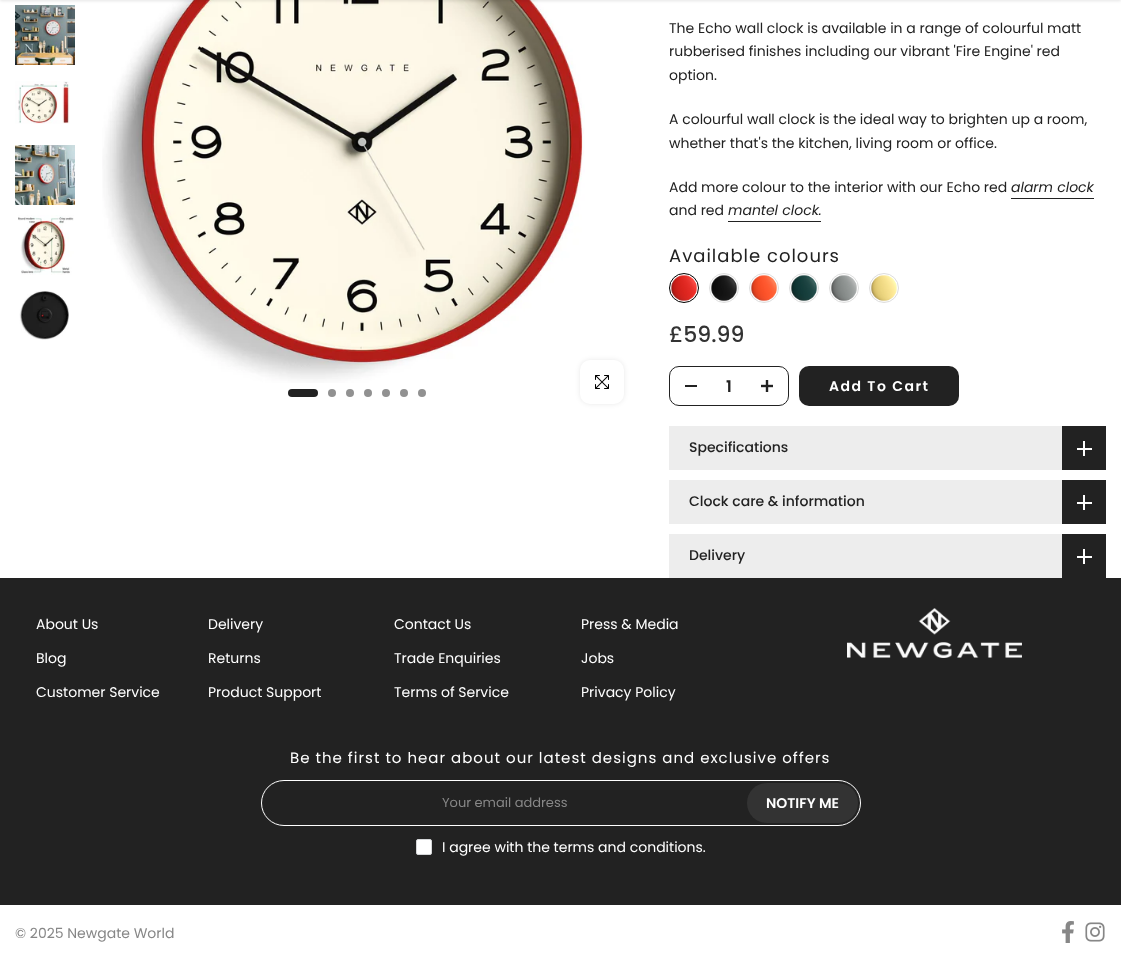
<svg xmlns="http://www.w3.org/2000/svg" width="1121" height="960">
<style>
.a{font:14px Poppins;fill:#222}
.b{font:italic 14px Poppins;fill:#222}
.c{font:18px Poppins;letter-spacing:1px;fill:#222}
.d{font:500 22px Poppins;fill:#333}
.e{font:600 16px Poppins;fill:#222}
.f{font:600 14px Poppins;letter-spacing:1.5px;fill:#fff}
.g{font:500 14px Poppins;fill:#222}
.h{font:14px Poppins;fill:#fff}
.i{font:15px Poppins;letter-spacing:1px;fill:#fff}
.j{font:13px Poppins;fill:#878787}
.k{font:600 14px Poppins;fill:#fff}
.l{font:14px Poppins;fill:#878787}
</style>
<rect width="100%" height="100%" fill="#fff"/>
<image href="1.png" x="15" y="5" width="60" height="60"/>
<image href="6.png" x="102" y="0" width="483" height="383"/>
<path fill="#0000001a" filter="blur(1.5px)" d="M0 -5h1121v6H0z"/>
<image href="2.png" x="15" y="81" width="55" height="43"/>
<image href="3.png" x="15" y="145" width="60" height="60"/>
<image href="4.png" x="18" y="215" width="56" height="60"/>
<image href="5.png" x="19" y="291" width="50" height="49"/>
<rect fill="#222" x="288" y="389" width="30" height="8" rx="4"/>
<circle fill="#919191" cx="332" cy="393" r="4"/>
<circle fill="#919191" cx="350" cy="393" r="4"/>
<circle fill="#919191" cx="368" cy="393" r="4"/>
<circle fill="#919191" cx="386" cy="393" r="4"/>
<circle fill="#919191" cx="404" cy="393" r="4"/>
<circle fill="#919191" cx="422" cy="393" r="4"/>
<rect fill="#00000017" filter="blur(2.5px)" x="580" y="360" width="44" height="44" rx="10"/>
<rect fill="#fff" x="580" y="360" width="44" height="44" rx="10"/>
<image href="7.png" x="595" y="375" width="14" height="14"/>
<path fill="#222" d="M1011 198h83v1H1011z"/>
<path fill="#222" d="M728 221h93v1H728z"/>
<circle fill="none" stroke="#000" cx="684" cy="288" r="14.5"/>
<image href="8.png" x="670" y="274" width="28" height="28"/>
<circle fill="none" stroke="#ddd" cx="724" cy="288" r="14.5"/>
<image href="9.png" x="710" y="274" width="28" height="28"/>
<circle fill="none" stroke="#ddd" cx="764" cy="288" r="14.5"/>
<image href="10.png" x="750" y="274" width="28" height="28"/>
<circle fill="none" stroke="#ddd" cx="804" cy="288" r="14.5"/>
<image href="11.png" x="790" y="274" width="28" height="28"/>
<circle fill="none" stroke="#ddd" cx="844" cy="288" r="14.5"/>
<image href="12.png" x="830" y="275" width="27" height="27"/>
<circle fill="none" stroke="#ddd" cx="884" cy="288" r="14.5"/>
<image href="13.png" x="870" y="275" width="28" height="27"/>
<rect fill="none" stroke="#222" x="669.5" y="366.5" width="119" height="39" rx="9.5"/>
<path fill="#222" d="M685 385h12v2H685z"/>
<image href="14.png" x="761" y="380" width="12" height="12"/>
<rect fill="#222" x="799" y="366" width="160" height="40" rx="10"/>
<path fill="#ededed" d="M669 426h393v44H669z"/>
<path fill="#222" d="M1062 426h44v44H1062z"/>
<path fill="#fff" d="M1083 441h2v15H1083z"/>
<path fill="#fff" d="M1077 448h15v2H1077z"/>
<path fill="#ededed" d="M669 480h393v44H669z"/>
<path fill="#222" d="M1062 480h44v44H1062z"/>
<path fill="#fff" d="M1083 495h2v15H1083z"/>
<path fill="#fff" d="M1077 502h15v2H1077z"/>
<path fill="#ededed" d="M669 534h393v44H669z"/>
<path fill="#222" d="M1062 534h44v44H1062z"/>
<path fill="#fff" d="M1083 549h2v15H1083z"/>
<path fill="#fff" d="M1077 556h15v2H1077z"/>
<path fill="#222" d="M0 578h1121v327H0z"/>
<image href="15.png" x="847" y="608" width="175" height="50"/>
<rect fill="none" stroke="#fff" x="261.5" y="780.5" width="599" height="45" rx="22.5"/>
<rect fill="#333" x="747" y="783" width="111" height="40" rx="20"/>
<rect fill="#fff" stroke="#d4d6d8" x="416.5" y="839.5" width="15" height="15" rx="1.5"/>
<image href="16.png" x="1062" y="921" width="12" height="22"/>
<image href="17.png" x="1085" y="922" width="20" height="20"/>
<text class="a" x="669" y="33">The Echo wall clock is available in a range of colourful matt</text>
<text class="a" x="669" y="56">rubberised finishes including our vibrant 'Fire Engine' red</text>
<text class="a" x="669" y="80">option.</text>
<text class="a" x="669" y="124">A colourful wall clock is the ideal way to brighten up a room,</text>
<text class="a" x="669" y="148">whether that's the kitchen, living room or office.</text>
<text class="a" x="669" y="192">Add more colour to the interior with our Echo red</text>
<text class="b" x="1011" y="192">alarm clock</text>
<text class="a" x="669" y="215">and red</text>
<text class="b" x="728" y="215">mantel clock.</text>
<text class="c" x="669" y="262">Available colours</text>
<text class="d" x="669" y="342">£59.99</text>
<text class="e" x="726" y="392">1</text>
<text class="f" x="829" y="391">Add To Cart</text>
<text class="g" x="689" y="452">Specifications</text>
<text class="g" x="689" y="506">Clock care &amp; information</text>
<text class="g" x="689" y="560">Delivery</text>
<text class="h" x="36" y="629">About Us</text>
<text class="h" x="36" y="663">Blog</text>
<text class="h" x="36" y="697">Customer Service</text>
<text class="h" x="208" y="629">Delivery</text>
<text class="h" x="208" y="663">Returns</text>
<text class="h" x="208" y="697">Product Support</text>
<text class="h" x="394" y="629">Contact Us</text>
<text class="h" x="394" y="663">Trade Enquiries</text>
<text class="h" x="394" y="697">Terms of Service</text>
<text class="h" x="581" y="629">Press &amp; Media</text>
<text class="h" x="581" y="663">Jobs</text>
<text class="h" x="581" y="697">Privacy Policy</text>
<text class="i" x="290" y="763">Be the first to hear about our latest designs and exclusive offers</text>
<text class="j" x="442" y="807">Your email address</text>
<text class="k" x="766" y="808">NOTIFY ME</text>
<text class="h" x="442" y="852">I agree with the terms and conditions.</text>
<text class="l" x="15" y="938">© 2025 Newgate World</text>
</svg>
